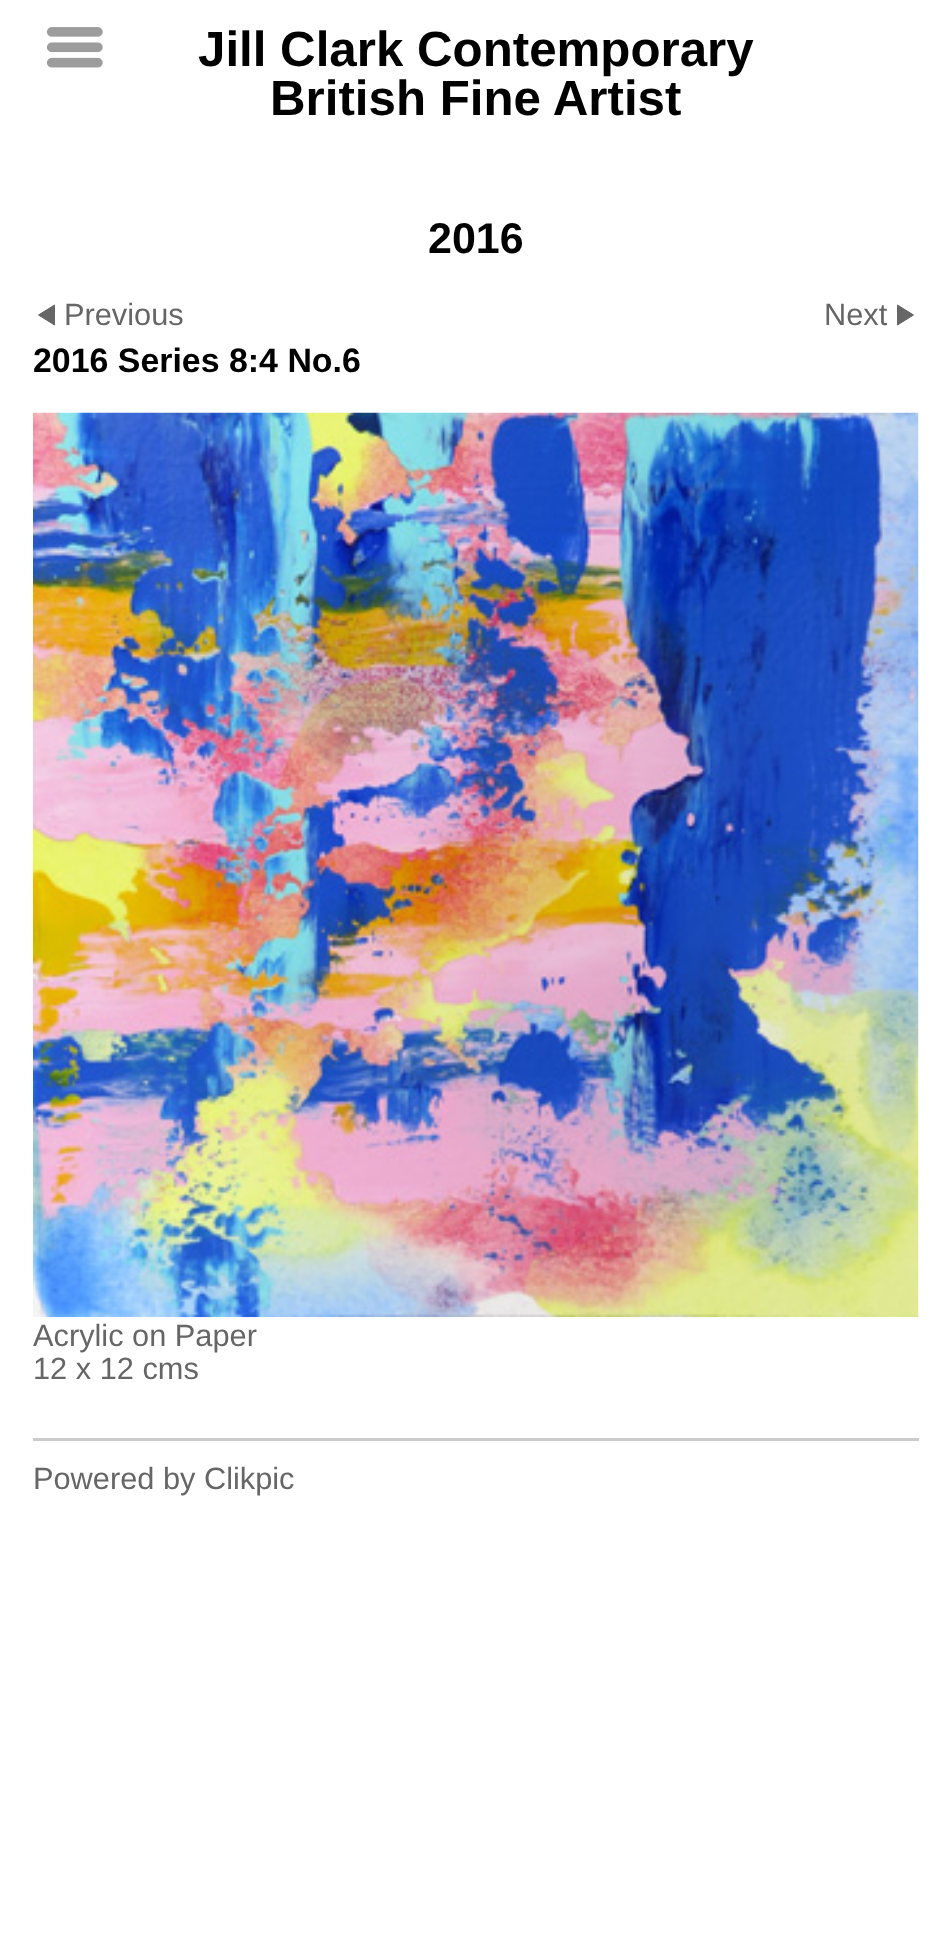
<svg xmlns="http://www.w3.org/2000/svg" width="949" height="1950">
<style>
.a{font:bold 49.25px Liberation Sans;fill:#000}
.b{font:bold 43px Liberation Sans;fill:#000}
.c{font:30.75px Liberation Sans;fill:#666}
.d{font:bold 33.9px Liberation Sans;fill:#000}
</style>
<rect width="100%" height="100%" fill="#fff"/>
<image href="1.png" x="46" y="27" width="57" height="41"/>
<path fill="#666" stroke="#666" d="M54.5 305v20l-16-10z"/>
<path fill="#666" stroke="#666" d="M897.5 305v20l16-10z"/>
<image href="2.png" x="33" y="412" width="886" height="906"/>
<path fill="#ccc" d="M33 1438h886v3H33z"/>
<text class="a" x="198" y="66">Jill Clark Contemporary</text>
<text class="a" x="270" y="115">British Fine Artist</text>
<text class="b" x="428" y="253">2016</text>
<text class="c" x="64" y="325">Previous</text>
<text class="c" x="824" y="325">Next</text>
<text class="d" x="33" y="372">2016 Series 8:4 No.6</text>
<text class="c" x="33" y="1346">Acrylic on Paper</text>
<text class="c" x="33" y="1379">12 x 12 cms</text>
<text class="c" x="33" y="1489">Powered by Clikpic</text>
</svg>
